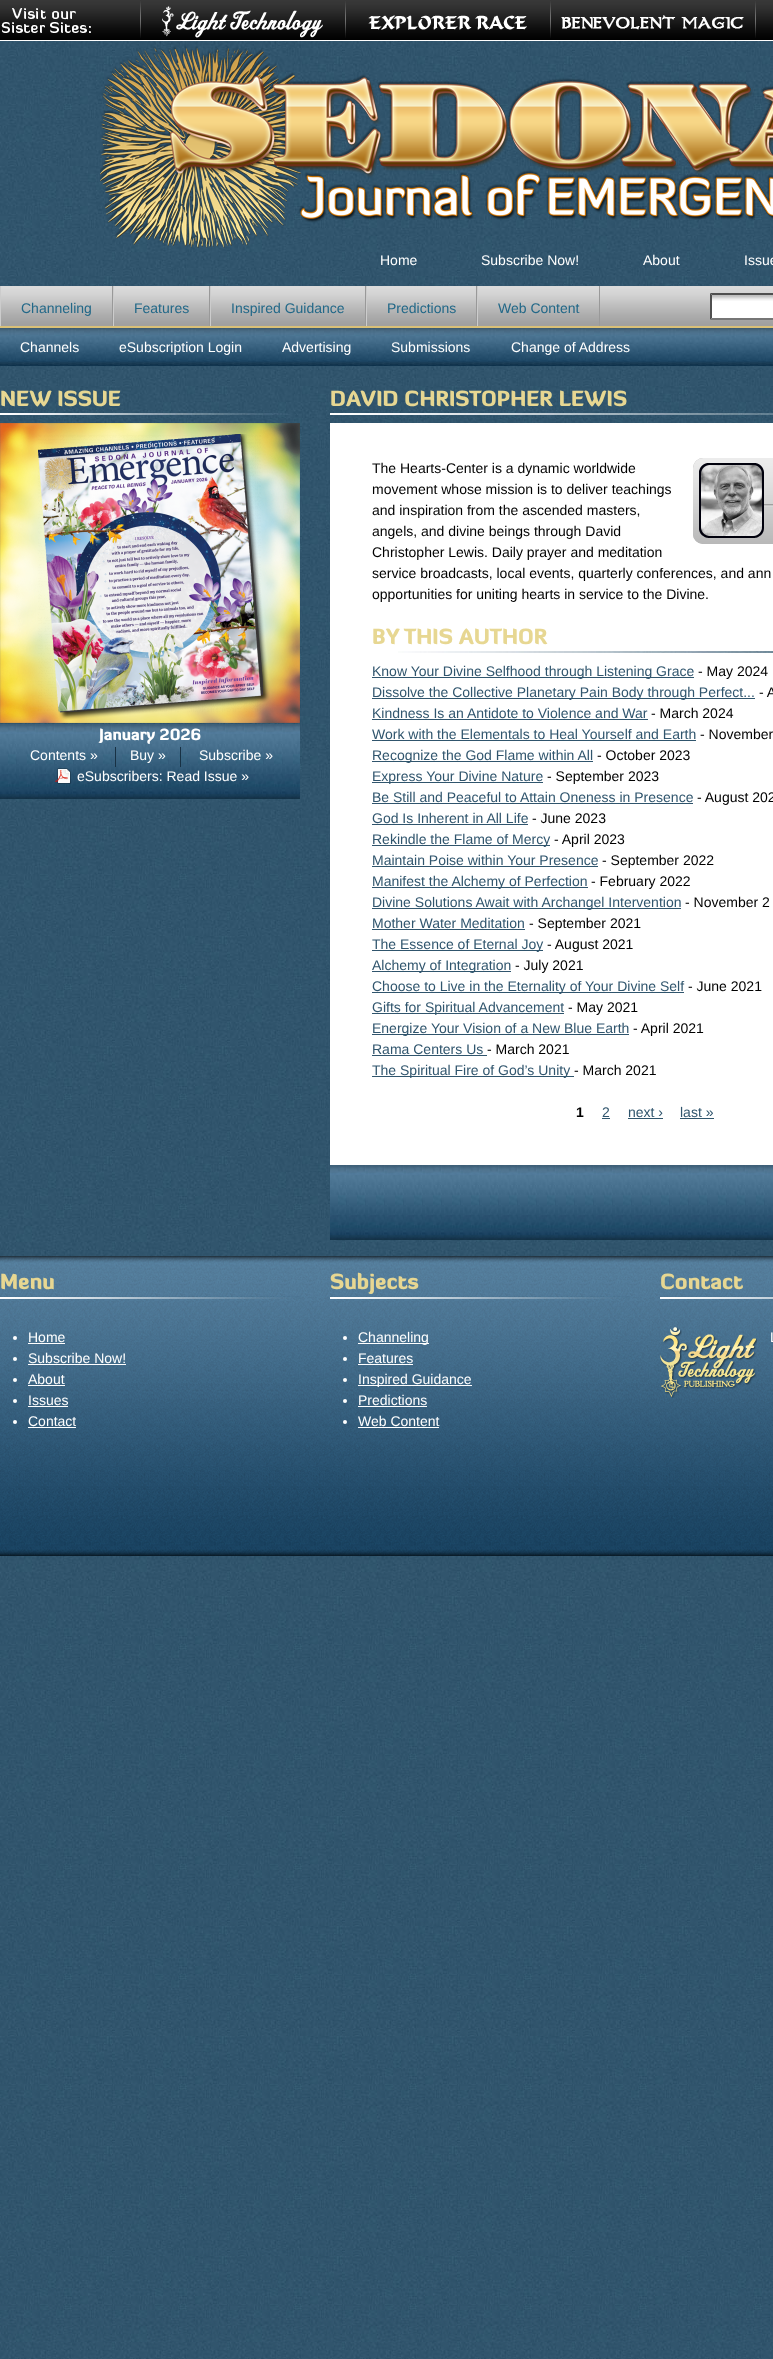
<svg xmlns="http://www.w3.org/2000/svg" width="773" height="2359">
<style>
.a{font:14px Liberation Sans;fill:#fff}
.b{font:14px Liberation Sans;fill:#226888}
.c{font:900 21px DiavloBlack;fill:#e7d792}
.d{font:900 15.5px DiavloBlack;fill:#fff}
.e{font:14px Liberation Sans;fill:#000}
.f{font:14px Liberation Sans;fill:#30556d}
.g{font:bold 14px Liberation Sans;fill:#000}
</style>
<rect width="100%" height="100%" fill="#fff"/>
<image href="1.png" x="0" y="41" width="773" height="2318"/>
<image href="2.png" x="0" y="0" width="773" height="40"/>
<image href="3.png" x="1" y="8" width="90" height="25"/>
<image href="4.png" x="140" y="1" width="1" height="37"/>
<image href="5.png" x="162" y="6" width="161" height="32"/>
<image href="4.png" x="345" y="1" width="1" height="37"/>
<image href="6.png" x="368" y="15" width="159" height="15"/>
<image href="4.png" x="550" y="1" width="1" height="37"/>
<image href="7.png" x="561" y="15" width="183" height="15"/>
<image href="4.png" x="755" y="1" width="1" height="37"/>
<image href="8.png" x="100" y="46" width="673" height="202"/>
<image href="9.png" x="1" y="286" width="772" height="40"/>
<path fill="#d9c077" d="M0 326h773v2H0z"/>
<path fill="#999" d="M112 286h1v40H112z"/>
<path fill="#ccc" d="M0 286h1v40H0z"/>
<path fill="#999" d="M209 286h1v40H209z"/>
<path fill="#ccc" d="M113 286h1v40H113z"/>
<path fill="#999" d="M365 286h1v40H365z"/>
<path fill="#ccc" d="M210 286h1v40H210z"/>
<path fill="#999" d="M476 286h1v40H476z"/>
<path fill="#ccc" d="M366 286h1v40H366z"/>
<path fill="#999" d="M599 286h1v40H599z"/>
<path fill="#ccc" d="M477 286h1v40H477z"/>
<path fill="#fff" d="M710 293h63v27H710z"/>
<image href="10.png" x="712" y="295" width="61" height="6"/>
<path fill="#4f4f4f" d="M710 293h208l-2 2h-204z"/>
<path fill="#767676" d="M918 320h-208l2-2h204z"/>
<path fill="#4f4f4f" d="M710 320v-27l2 2v23z"/>
<image href="11.png" x="0" y="328" width="773" height="38"/>
<image href="12.png" x="0" y="413" width="298" height="2"/>
<image href="13.png" x="0" y="423" width="300" height="300"/>
<image href="14.png" x="0" y="724" width="300" height="75"/>
<path fill="#183144" d="M180 747h1v20H180z"/>
<path fill="#183144" d="M115 747h1v20H115z"/>
<image href="15.png" x="55" y="768" width="16" height="16"/>
<image href="16.png" x="330" y="413" width="443" height="2"/>
<path fill="#fff" d="M330 423h443v742H330z"/>
<image href="17.png" x="330" y="1165" width="443" height="75"/>
<rect fill="#b0b0b0" x="693" y="458" width="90" height="86" rx="10"/>
<image href="18.png" x="693" y="458" width="80" height="86"/>
<image href="19.png" x="699" y="463" width="65" height="75"/>
<image href="20.png" x="764" y="504" width="9" height="3"/>
<image href="21.png" x="398" y="651" width="375" height="2"/>
<path fill="#30556d" d="M372 677h322v1H372z"/>
<path fill="#30556d" d="M372 698h383v1H372z"/>
<path fill="#30556d" d="M372 719h276v1H372z"/>
<path fill="#30556d" d="M372 740h324v1H372z"/>
<path fill="#30556d" d="M372 761h221v1H372z"/>
<path fill="#30556d" d="M372 782h171v1H372z"/>
<path fill="#30556d" d="M372 803h321v1H372z"/>
<path fill="#30556d" d="M372 824h156v1H372z"/>
<path fill="#30556d" d="M372 845h178v1H372z"/>
<path fill="#30556d" d="M372 866h226v1H372z"/>
<path fill="#30556d" d="M372 887h216v1H372z"/>
<path fill="#30556d" d="M372 908h309v1H372z"/>
<path fill="#30556d" d="M372 929h153v1H372z"/>
<path fill="#30556d" d="M372 950h171v1H372z"/>
<path fill="#30556d" d="M372 971h139v1H372z"/>
<path fill="#30556d" d="M372 992h312v1H372z"/>
<path fill="#30556d" d="M372 1013h192v1H372z"/>
<path fill="#30556d" d="M372 1034h257v1H372z"/>
<path fill="#30556d" d="M372 1055h115v1H372z"/>
<path fill="#30556d" d="M372 1076h202v1H372z"/>
<path fill="#30556d" d="M602 1118h8v1H602z"/>
<path fill="#30556d" d="M628 1118h35v1H628z"/>
<path fill="#30556d" d="M680 1118h34v1H680z"/>
<image href="22.png" x="0" y="1256" width="773" height="300"/>
<image href="23.png" x="0" y="1296" width="300" height="3"/>
<circle fill="#fff" cx="15" cy="1338" r="2"/>
<path fill="#fff" d="M28 1343h37v1H28z"/>
<circle fill="#fff" cx="15" cy="1359" r="2"/>
<path fill="#fff" d="M28 1364h98v1H28z"/>
<circle fill="#fff" cx="15" cy="1380" r="2"/>
<path fill="#fff" d="M28 1385h37v1H28z"/>
<circle fill="#fff" cx="15" cy="1401" r="2"/>
<path fill="#fff" d="M28 1406h40v1H28z"/>
<circle fill="#fff" cx="15" cy="1422" r="2"/>
<path fill="#fff" d="M28 1427h48v1H28z"/>
<image href="23.png" x="330" y="1296" width="300" height="3"/>
<circle fill="#fff" cx="345" cy="1338" r="2"/>
<path fill="#fff" d="M358 1343h71v1H358z"/>
<circle fill="#fff" cx="345" cy="1359" r="2"/>
<path fill="#fff" d="M358 1364h55v1H358z"/>
<circle fill="#fff" cx="345" cy="1380" r="2"/>
<path fill="#fff" d="M358 1385h114v1H358z"/>
<circle fill="#fff" cx="345" cy="1401" r="2"/>
<path fill="#fff" d="M358 1406h69v1H358z"/>
<circle fill="#fff" cx="345" cy="1422" r="2"/>
<path fill="#fff" d="M358 1427h81v1H358z"/>
<image href="24.png" x="660" y="1296" width="113" height="3"/>
<image href="25.png" x="660" y="1327" width="97" height="71"/>
<text class="a" x="380" y="265">Home</text>
<text class="a" x="481" y="265">Subscribe Now!</text>
<text class="a" x="643" y="265">About</text>
<text class="a" x="744" y="265">Issue</text>
<text class="b" x="21" y="313">Channeling</text>
<text class="b" x="134" y="313">Features</text>
<text class="b" x="231" y="313">Inspired Guidance</text>
<text class="b" x="387" y="313">Predictions</text>
<text class="b" x="498" y="313">Web Content</text>
<text class="a" x="20" y="352">Channels</text>
<text class="a" x="119" y="352">eSubscription Login</text>
<text class="a" x="282" y="352">Advertising</text>
<text class="a" x="391" y="352">Submissions</text>
<text class="a" x="511" y="352">Change of Address</text>
<text class="c" x="0" y="406">NEW ISSUE</text>
<text class="d" x="99" y="740">January 2026</text>
<text class="a" x="30" y="760">Contents »</text>
<text class="a" x="130" y="760">Buy »</text>
<text class="a" x="199" y="760">Subscribe »</text>
<text class="a" x="77" y="781">eSubscribers: Read Issue »</text>
<text class="c" x="330" y="406">DAVID CHRISTOPHER LEWIS</text>
<text class="e" x="372" y="473">The Hearts-Center is a dynamic worldwide</text>
<text class="e" x="372" y="494">movement whose mission is to deliver teachings</text>
<text class="e" x="372" y="515">and inspiration from the ascended masters,</text>
<text class="e" x="372" y="536">angels, and divine beings through David</text>
<text class="e" x="372" y="557">Christopher Lewis. Daily prayer and meditation</text>
<text class="e" x="372" y="578">service broadcasts, local events, quarterly conferences, and ann</text>
<text class="e" x="372" y="599">opportunities for uniting hearts in service to the Divine.</text>
<text class="c" x="372" y="644">BY THIS AUTHOR</text>
<text class="f" x="372" y="676">Know Your Divine Selfhood through Listening Grace</text>
<text class="e" x="698" y="676">- May 2024</text>
<text class="f" x="372" y="697">Dissolve the Collective Planetary Pain Body through Perfect...</text>
<text class="e" x="759" y="697">- A</text>
<text class="f" x="372" y="718">Kindness Is an Antidote to Violence and War</text>
<text class="e" x="651" y="718">- March 2024</text>
<text class="f" x="372" y="739">Work with the Elementals to Heal Yourself and Earth</text>
<text class="e" x="700" y="739">- November</text>
<text class="f" x="372" y="760">Recognize the God Flame within All</text>
<text class="e" x="597" y="760">- October 2023</text>
<text class="f" x="372" y="781">Express Your Divine Nature</text>
<text class="e" x="547" y="781">- September 2023</text>
<text class="f" x="372" y="802">Be Still and Peaceful to Attain Oneness in Presence</text>
<text class="e" x="697" y="802">- August 202</text>
<text class="f" x="372" y="823">God Is Inherent in All Life</text>
<text class="e" x="532" y="823">- June 2023</text>
<text class="f" x="372" y="844">Rekindle the Flame of Mercy</text>
<text class="e" x="554" y="844">- April 2023</text>
<text class="f" x="372" y="865">Maintain Poise within Your Presence</text>
<text class="e" x="602" y="865">- September 2022</text>
<text class="f" x="372" y="886">Manifest the Alchemy of Perfection</text>
<text class="e" x="591" y="886">- February 2022</text>
<text class="f" x="372" y="907">Divine Solutions Await with Archangel Intervention</text>
<text class="e" x="685" y="907">- November 2</text>
<text class="f" x="372" y="928">Mother Water Meditation</text>
<text class="e" x="529" y="928">- September 2021</text>
<text class="f" x="372" y="949">The Essence of Eternal Joy</text>
<text class="e" x="547" y="949">- August 2021</text>
<text class="f" x="372" y="970">Alchemy of Integration</text>
<text class="e" x="515" y="970">- July 2021</text>
<text class="f" x="372" y="991">Choose to Live in the Eternality of Your Divine Self</text>
<text class="e" x="688" y="991">- June 2021</text>
<text class="f" x="372" y="1012">Gifts for Spiritual Advancement</text>
<text class="e" x="568" y="1012">- May 2021</text>
<text class="f" x="372" y="1033">Energize Your Vision of a New Blue Earth</text>
<text class="e" x="633" y="1033">- April 2021</text>
<text class="f" x="372" y="1054">Rama Centers Us</text>
<text class="e" x="487" y="1054">- March 2021</text>
<text class="f" x="372" y="1075">The Spiritual Fire of God’s Unity</text>
<text class="e" x="574" y="1075">- March 2021</text>
<text class="g" x="576" y="1117">1</text>
<text class="f" x="602" y="1117">2</text>
<text class="f" x="628" y="1117">next ›</text>
<text class="f" x="680" y="1117">last »</text>
<text class="c" x="0" y="1289">Menu</text>
<text class="a" x="28" y="1342">Home</text>
<text class="a" x="28" y="1363">Subscribe Now!</text>
<text class="a" x="28" y="1384">About</text>
<text class="a" x="28" y="1405">Issues</text>
<text class="a" x="28" y="1426">Contact</text>
<text class="c" x="330" y="1289">Subjects</text>
<text class="a" x="358" y="1342">Channeling</text>
<text class="a" x="358" y="1363">Features</text>
<text class="a" x="358" y="1384">Inspired Guidance</text>
<text class="a" x="358" y="1405">Predictions</text>
<text class="a" x="358" y="1426">Web Content</text>
<text class="c" x="660" y="1289">Contact</text>
<text class="a" x="770" y="1342">L</text>
</svg>
